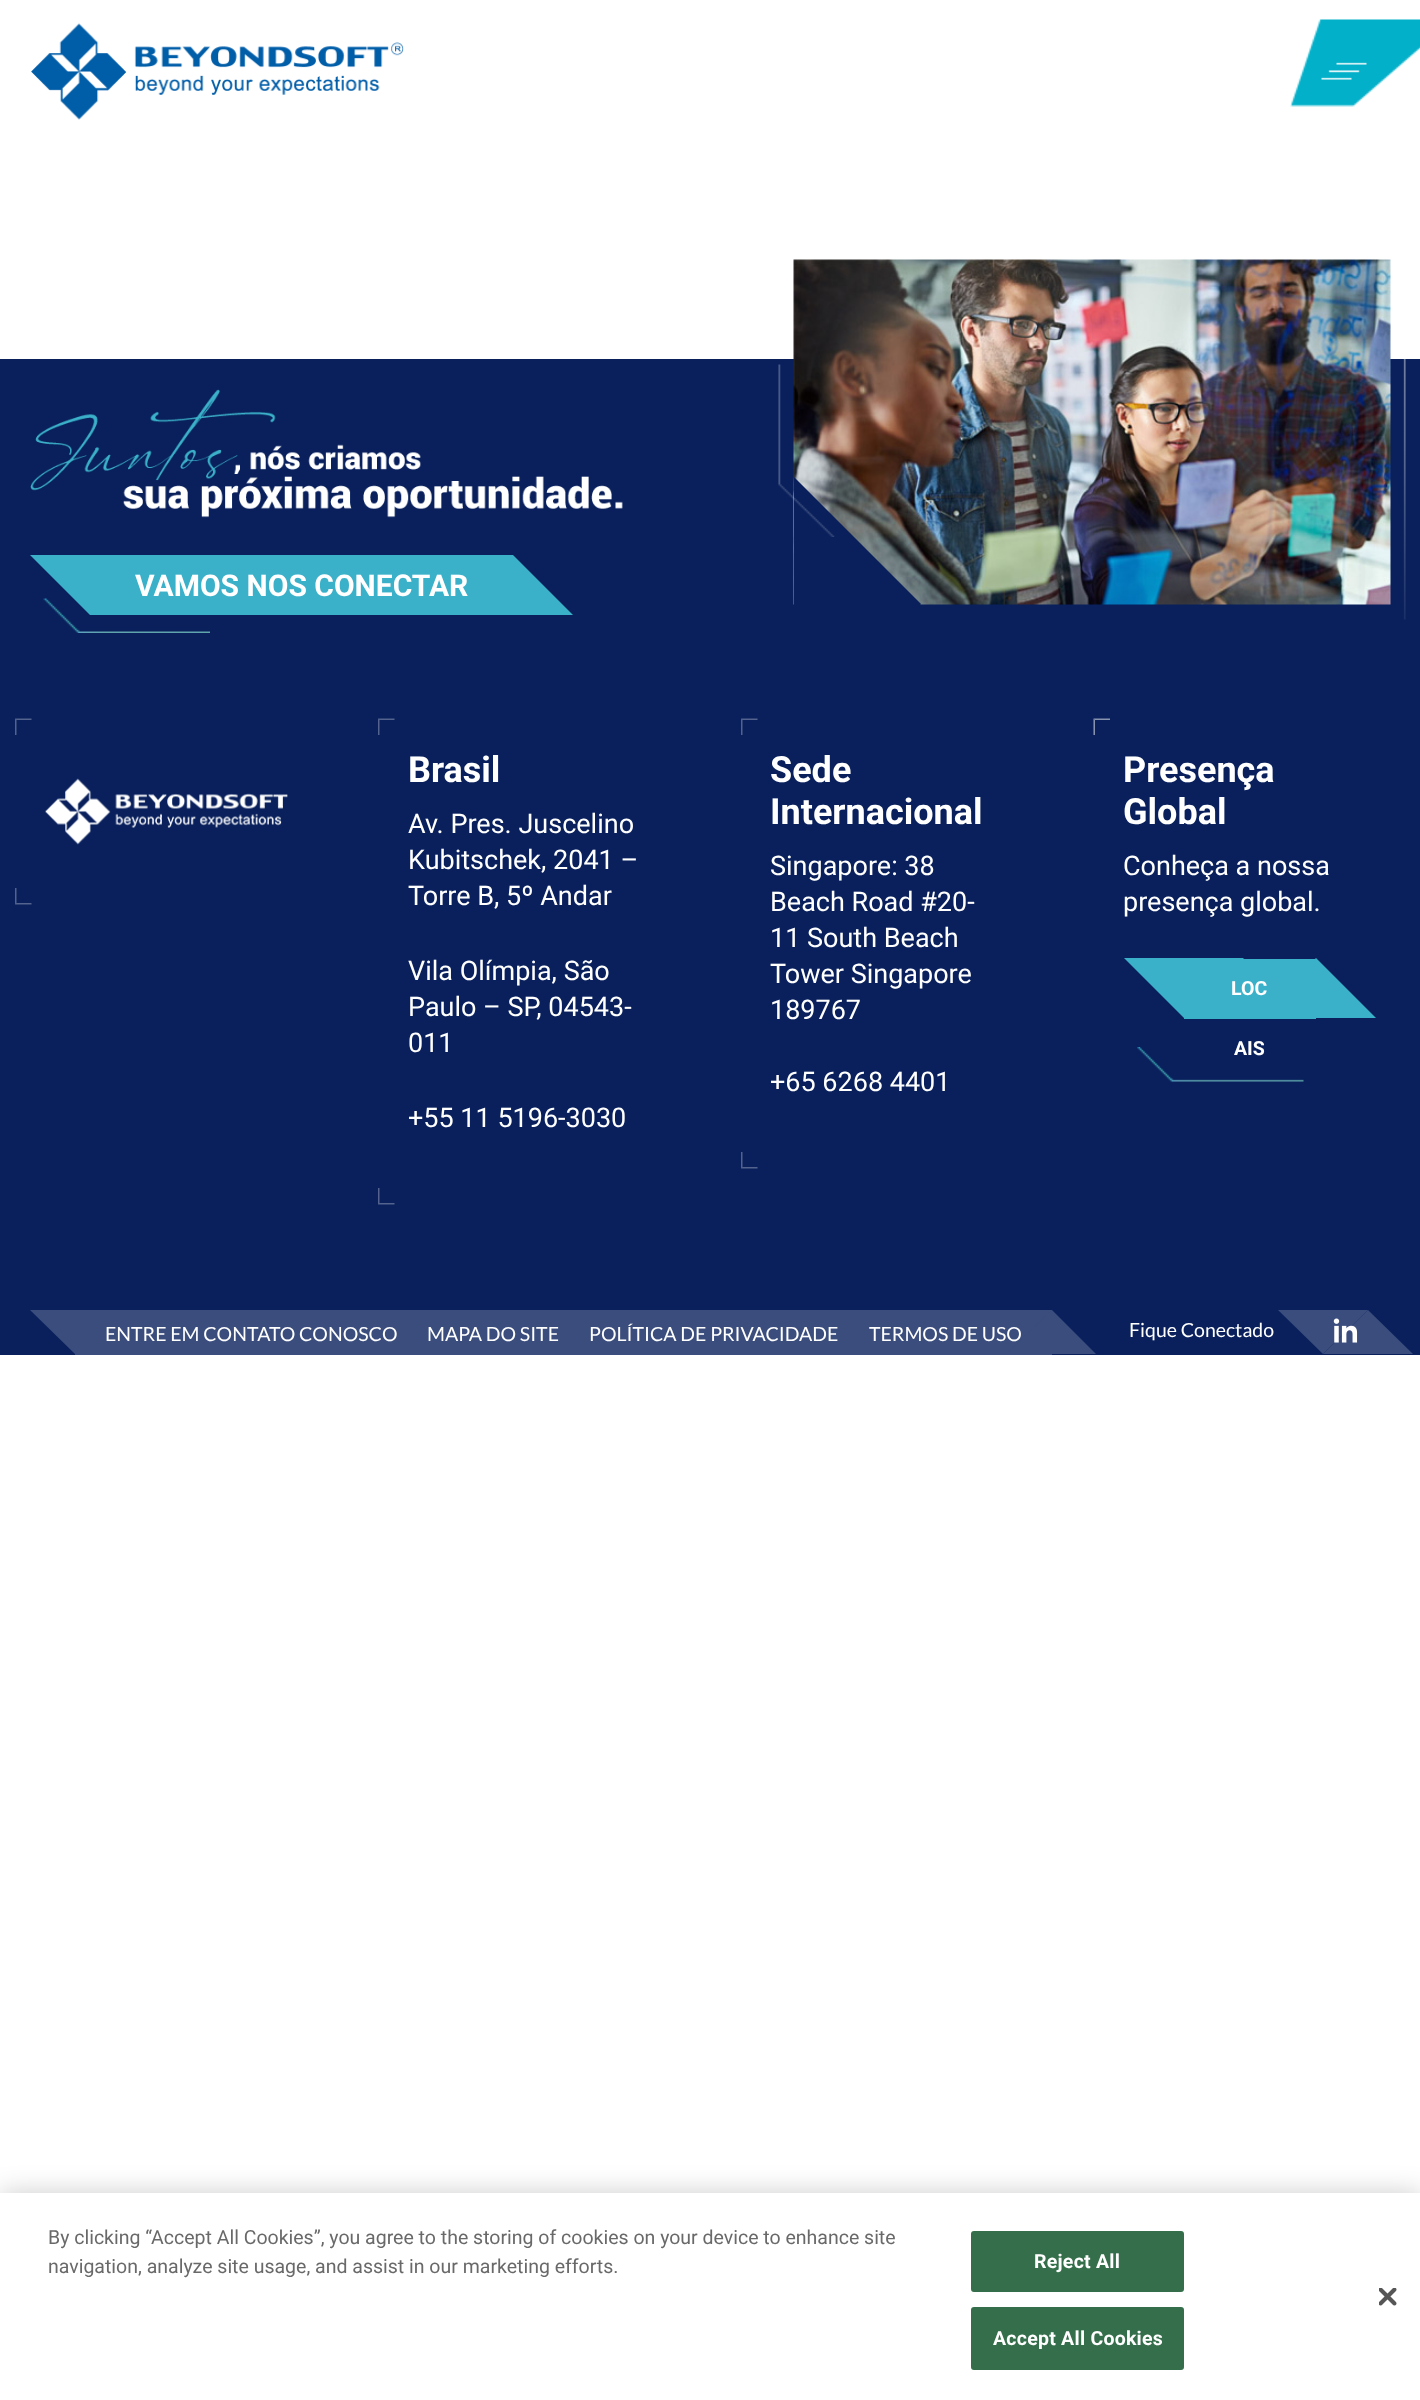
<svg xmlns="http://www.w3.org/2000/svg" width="1420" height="2400">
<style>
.a{font:bold 30px Roboto;fill:#fff}
.b{font:bold 36px Roboto;fill:#fff}
.c{font:27px Roboto;fill:#fff}
.d{font:bold 19.5px Roboto;fill:#fff}
.e{font:19.5px Lato;fill:#fff}
.f{font:19.5px Roboto;fill:#696969}
.g{font:bold 19.5px Roboto;letter-spacing:0.25px;fill:#fff}
</style>
<rect width="100%" height="100%" fill="#fff"/>
<image href="1.png" x="31" y="23" width="373" height="97"/>
<image href="2.png" x="1290" y="19" width="130" height="88"/>
<path fill="#09205c" d="M0 359h1420v996H0z"/>
<image href="3.png" x="30" y="389" width="593" height="129"/>
<image href="4.png" x="43" y="598" width="167" height="35"/>
<path fill="#3bb0c9" d="M90 555h423v60H90z"/>
<image href="5.png" x="793" y="259" width="598" height="346"/>
<path fill="#09205c" d="M794 732v-255l127 127z"/>
<image href="6.png" x="778" y="359" width="628" height="261"/>
<path fill="#53638d" d="M15 718.5h16.5v1.5h-15z"/>
<path fill="#ffffff4d" d="M15 735v-16.5l1.5 1.5v15z"/>
<image href="7.png" x="45" y="778" width="243" height="67"/>
<path fill="#53638d" d="M31.5 904.5h-16.5l1.5-1.5h15z"/>
<path fill="#ffffff4d" d="M15 904.5v-16.5h1.5v15z"/>
<path fill="#53638d" d="M378 718.5h16.5v1.5h-15z"/>
<path fill="#ffffff4d" d="M378 735v-16.5l1.5 1.5v15z"/>
<path fill="#53638d" d="M394.5 1204.5h-16.5l1.5-1.5h15z"/>
<path fill="#ffffff4d" d="M378 1204.5v-16.5h1.5v15z"/>
<path fill="#53638d" d="M741 718.5h16.5v1.5h-15z"/>
<path fill="#ffffff4d" d="M741 735v-16.5l1.5 1.5v15z"/>
<path fill="#53638d" d="M757.5 1168.5h-16.5l1.5-1.5h15z"/>
<path fill="#ffffff4d" d="M741 1168.5v-16.5h1.5v15z"/>
<path fill="#ffffff4d" d="M1093.5 735v-16.5l1.5 1.5v15z"/>
<path fill="#8792af" d="M1093.5 718.5h16.5v1.5h-15z"/>
<path fill="#ffffff4d" d="M1093.5 735v-16.5l1.5 1.5v15z"/>
<path fill="#3bb0c9" d="M1184 959h132v60H1184z"/>
<image href="8.png" x="1137" y="1047" width="167" height="35"/>
<path fill="#3a4d7d" d="M75 1310h977v45H75z"/>
<path fill="#3a4d7d" d="M30 1310h90l-45 44z"/>
<path fill="#3a4d7d" d="M1096 1354h-90l46-44z"/>
<path fill="#3a4d7d" d="M1278 1310h90l-45 44z"/>
<path fill="#3a4d7d" d="M1413 1354h-90l45-44z"/>
<image href="9.png" x="1333" y="1318" width="25" height="25"/>
<path fill="#00000033" filter="blur(13.5px)" d="M0 2193h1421v207H0z"/>
<path fill="#fff" d="M0 2193h1420v207H0z"/>
<rect fill="#346e4a" stroke="#346e4a" stroke-width="2" x="972" y="2232" width="211" height="59" rx="2"/>
<rect fill="#346e4a" stroke="#346e4a" stroke-width="2" x="972" y="2308" width="211" height="61" rx="2"/>
<image href="10.png" x="1379" y="2288" width="18" height="18"/>
<text class="a" x="135" y="596">VAMOS NOS CONECTAR</text>
<path fill="#3bb0c9" d="M30 555h120l-60 60z"/>
<path fill="#3bb0c9" d="M573 615h-120l60-60z"/>
<text class="b" x="408" y="782">Brasil</text>
<text class="c" x="408" y="833">Av. Pres. Juscelino</text>
<text class="c" x="408" y="869">Kubitschek, 2041 –</text>
<text class="c" x="408" y="905">Torre B, 5º Andar</text>
<text class="c" x="408" y="980">Vila Olímpia, São</text>
<text class="c" x="408" y="1016">Paulo – SP, 04543-</text>
<text class="c" x="408" y="1052">011</text>
<text class="c" x="408" y="1127">+55 11 5196-3030</text>
<text class="b" x="770" y="782">Sede</text>
<text class="b" x="770" y="824">Internacional</text>
<text class="c" x="770" y="875">Singapore: 38</text>
<text class="c" x="770" y="911">Beach Road #20-</text>
<text class="c" x="770" y="947">11 South Beach</text>
<text class="c" x="770" y="983">Tower Singapore</text>
<text class="c" x="770" y="1019">189767</text>
<text class="c" x="770" y="1091">+65 6268 4401</text>
<text class="b" x="1123" y="782">Presença</text>
<text class="b" x="1123" y="824">Global</text>
<text class="c" x="1123" y="875">Conheça a nossa</text>
<text class="c" x="1123" y="911">presença global.</text>
<text class="d" x="1231" y="995">LOC</text>
<path fill="#3bb0c9" d="M1124 958h120l-60 60z"/>
<path fill="#3bb0c9" d="M1376 1018h-120l60-60z"/>
<text class="d" x="1234" y="1055">AIS</text>
<text class="e" x="105" y="1341">ENTRE EM CONTATO CONOSCO</text>
<text class="e" x="427" y="1341">MAPA DO SITE</text>
<text class="e" x="589" y="1341">POLÍTICA DE PRIVACIDADE</text>
<text class="e" x="869" y="1341">TERMOS DE USO</text>
<text class="e" x="1129" y="1337">Fique Conectado</text>
<text class="f" x="48" y="2244">By clicking “Accept All Cookies”, you agree to the storing of cookies on your device to enhance site</text>
<text class="f" x="48" y="2273">navigation, analyze site usage, and assist in our marketing efforts.</text>
<text class="g" x="1034" y="2268">Reject All</text>
<text class="g" x="993" y="2345">Accept All Cookies</text>
</svg>
